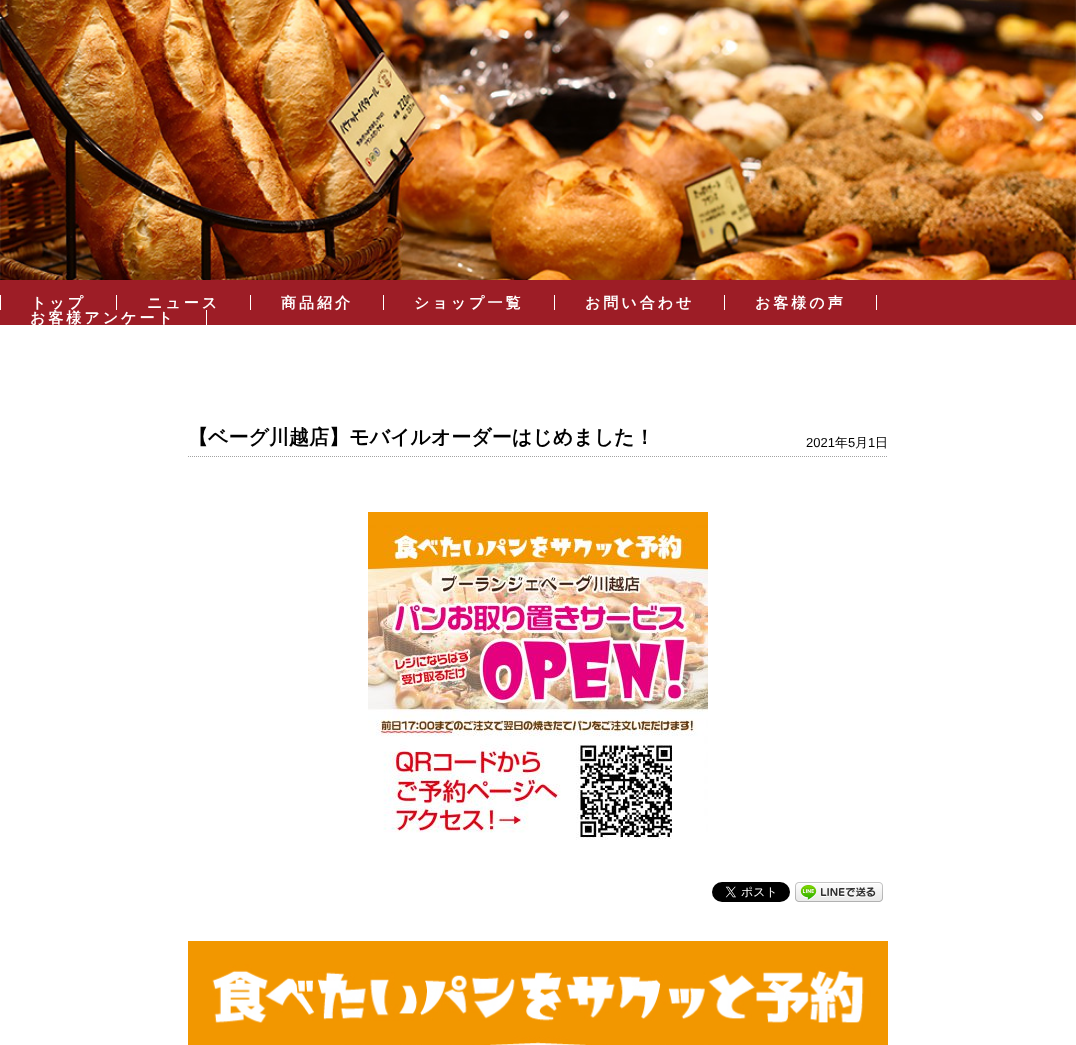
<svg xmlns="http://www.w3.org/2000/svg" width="1076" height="1045">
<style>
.a{font:bold 15px WenQuanYi Zen Hei;letter-spacing:3px;fill:#fff}
.b{font:bold 20px WenQuanYi Zen Hei;fill:#000}
.c{font:13px Liberation Sans;fill:#000}
.d{font:500 13px WenQuanYi Zen Hei;fill:#000}
</style>
<defs>
<clipPath id="clip1"><path d="M555 295h169v15H555z"/></clipPath>
<clipPath id="clip2"><path d="M725 295h151v15H725z"/></clipPath>
<clipPath id="clip3"><path d="M0 310h206v15H0z"/></clipPath>
</defs>
<rect width="100%" height="100%" fill="#fff"/>
<image href="1.png" x="0" y="0" width="1076" height="280"/>
<path fill="#9d1d26" d="M0 280h1076v45H0z"/>
<path fill="#fff" d="M116 295h1v15H116z"/>
<path fill="#fff" d="M0 295h1v15H0z"/>
<path fill="#fff" d="M250 295h1v15H250z"/>
<path fill="#fff" d="M383 295h1v15H383z"/>
<path fill="#fff" d="M554 295h1v15H554z"/>
<path fill="#fff" d="M724 295h1v15H724z"/>
<path fill="#fff" d="M876 295h1v15H876z"/>
<path fill="#fff" d="M206 310h1v15H206z"/>
<path fill="none" stroke="#a2a2a2" stroke-dasharray="1 1" d="M188 456.5h700"/>
<image href="2.png" x="368" y="512" width="340" height="328"/>
<image href="3.png" x="712" y="882" width="78" height="20"/>
<image href="4.png" x="795" y="882" width="88" height="20"/>
<image href="5.png" x="188" y="941" width="700" height="104"/>
<text class="a" x="31" y="308">トップ</text>
<text class="a" x="147" y="308">ニュース</text>
<text class="a" x="281" y="308">商品紹介</text>
<text class="a" x="414" y="308">ショップ一覧</text>
<g clip-path="url(#clip1)">
<text class="a" x="585" y="308">お問い合わせ</text>
</g>
<g clip-path="url(#clip2)">
<text class="a" x="755" y="308">お客様の声</text>
</g>
<g clip-path="url(#clip3)">
<text class="a" x="30" y="323">お客様アンケート</text>
</g>
<text class="b" x="188" y="444">【ベーグ川越店】モバイルオーダーはじめました！</text>
<text class="c" x="806" y="447">2021</text>
<text class="d" x="835" y="447">年</text>
<text class="c" x="848" y="447">5</text>
<text class="d" x="855" y="447">月</text>
<text class="c" x="868" y="447">1</text>
<text class="d" x="875" y="447">日</text>
</svg>
